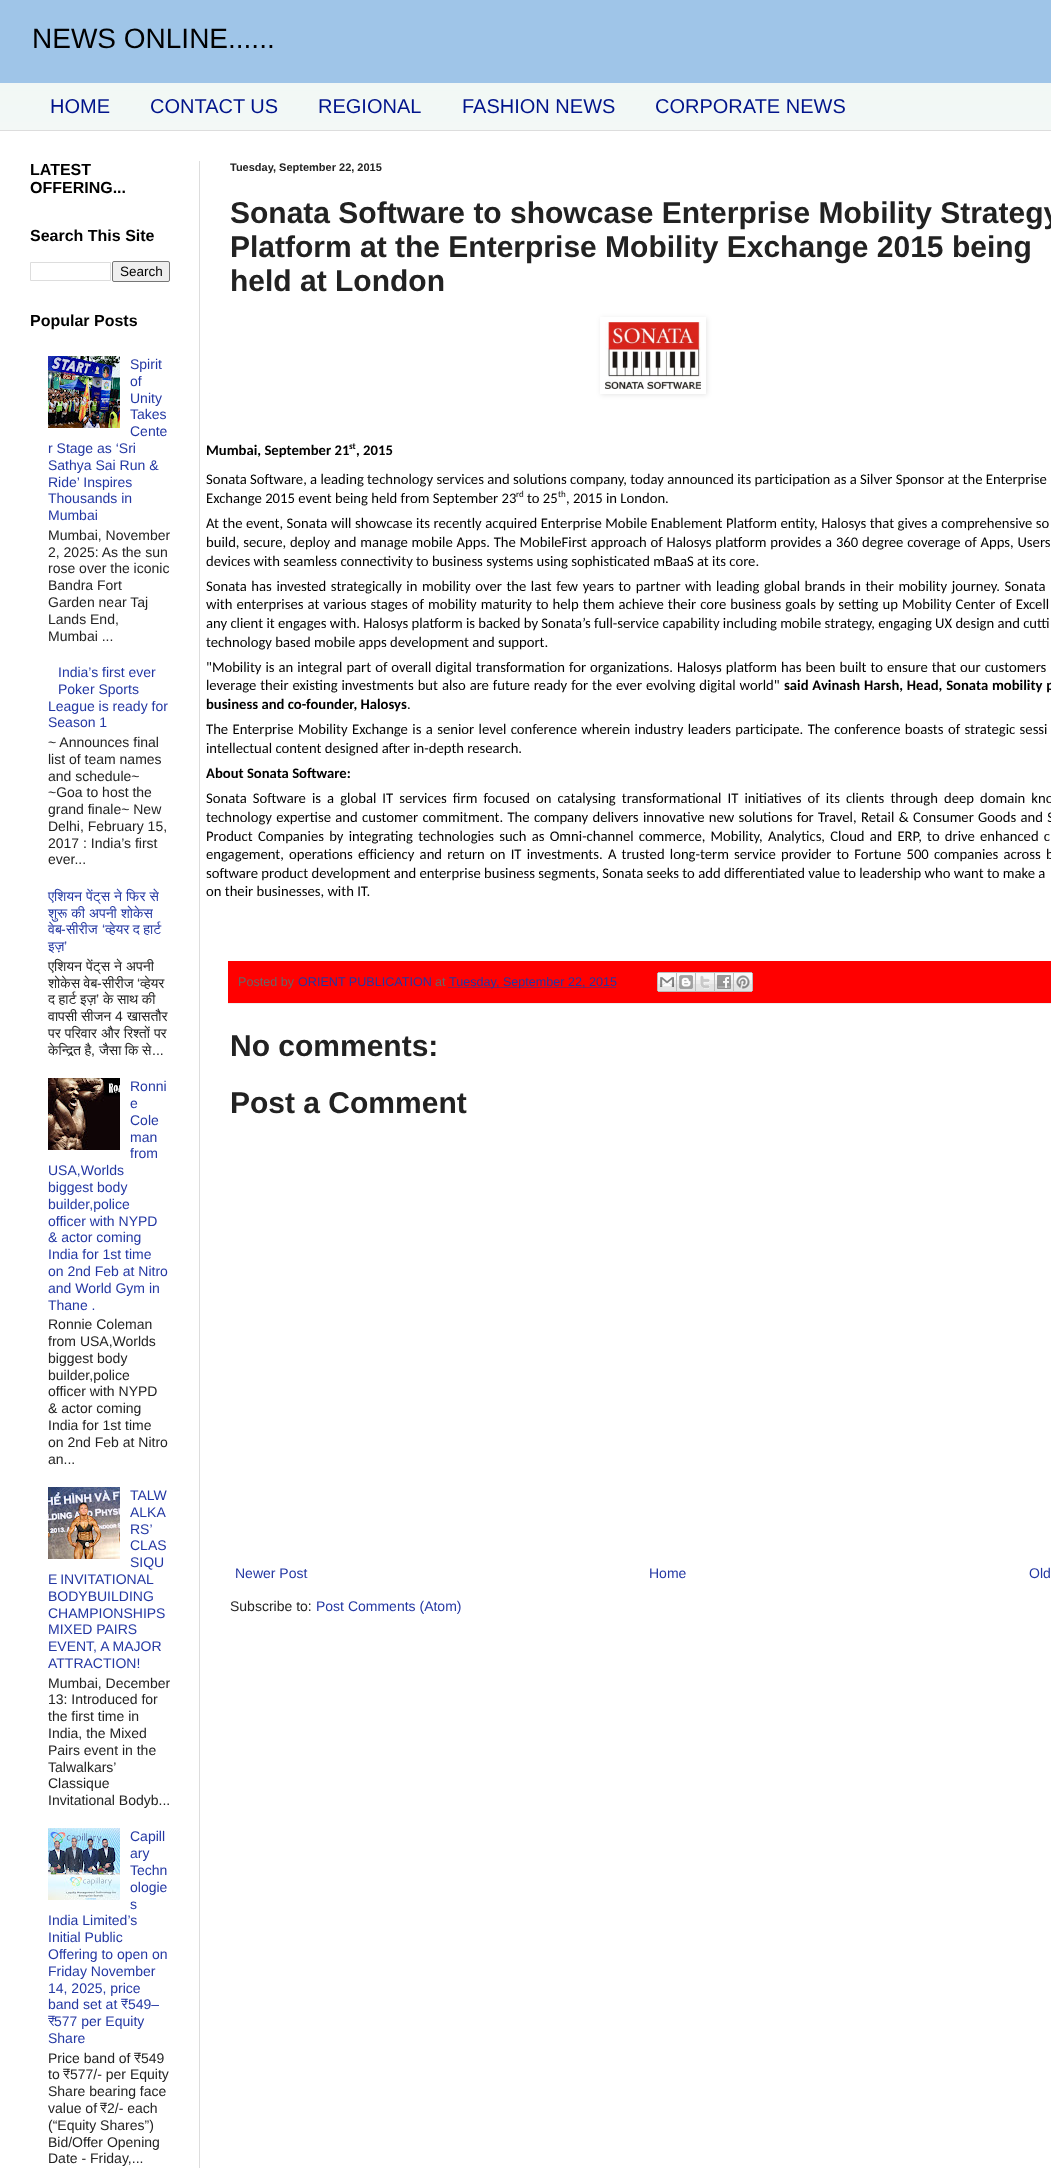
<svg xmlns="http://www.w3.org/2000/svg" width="1051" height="2168">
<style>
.a{font:28px Liberation Sans;fill:#000}
.b{font:20px Liberation Sans;fill:#00148b}
.c{font:bold 16px Liberation Sans;fill:#000}
.d{font:13.5px Liberation Sans;fill:#000}
.e{font:14px Liberation Sans;fill:#2337a3}
.f{font:14px Liberation Sans;fill:#222}
.g{font:14px FreeSans;fill:#2337a3}
.h{font:14px FreeSans;fill:#222}
.i{font:bold 11px Liberation Sans;fill:#222}
.j{font:bold 30px Liberation Sans;fill:#222}
.k{font:bold 14.67px Carlito;fill:#000}
.l{font:bold 9px Carlito;fill:#000}
.m{font:14.67px Carlito;fill:#000}
.n{font:9px Carlito;fill:#000}
.o{font:12.6px Liberation Sans;fill:#666}
.p{font:12.6px Liberation Sans;fill:#2337a3}
</style>
<defs>
<clipPath id="clip1"><path d="M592 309h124v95h-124zm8 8h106v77h-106z" clip-rule="evenodd"/></clipPath>
</defs>
<rect width="100%" height="100%" fill="#e9f3ef"/>
<path fill="#9fc5e8" d="M0 0h1051v83H0z"/>
<path fill="#fff" d="M0 131h1051v2037H0z"/>
<path fill="#ddd" d="M0 130h1051v1H0z"/>
<path fill="#ddd" d="M199 161h1v2007H199z"/>
<path fill="none" stroke="#ddd" d="M30.5 262.5h80v18H30.5z"/>
<rect fill="#efefef" stroke="#767676" x="112.5" y="261.5" width="57" height="20" rx="1.5"/>
<image href="1.png" x="48" y="356" width="72" height="72"/>
<image href="2.png" x="48" y="1078" width="72" height="72"/>
<image href="3.png" x="48" y="1487" width="72" height="72"/>
<image href="4.png" x="48" y="1828" width="72" height="72"/>
<g clip-path="url(#clip1)">
<path fill="#0000001a" filter="blur(2.5px)" d="M601 318h106v77H601z"/>
</g>
<image href="5.png" x="605" y="322" width="96" height="67"/>
<path fill="#f00" d="M228 961h823v42H228z"/>
<path fill="#eee" d="M228 1003h823v1H228z"/>
<path fill="none" stroke="#2337a3" stroke-dasharray="1 1" d="M448.5 987.5h168"/>
<image href="6.png" x="657" y="972" width="20" height="20"/>
<image href="7.png" x="677" y="972" width="19" height="20"/>
<image href="8.png" x="696" y="972" width="19" height="20"/>
<image href="9.png" x="715" y="972" width="19" height="20"/>
<image href="10.png" x="734" y="972" width="19" height="20"/>
<image href="11.png" x="0" y="83" width="1051" height="47"/>
<text class="a" x="32" y="48">NEWS ONLINE......</text>
<text class="b" x="50" y="113">HOME</text>
<text class="b" x="150" y="113">CONTACT US</text>
<text class="b" x="318" y="113">REGIONAL</text>
<text class="b" x="462" y="113">FASHION NEWS</text>
<text class="b" x="655" y="113">CORPORATE NEWS</text>
<text class="c" x="30" y="175">LATEST</text>
<text class="c" x="30" y="193">OFFERING...</text>
<text class="c" x="30" y="241">Search This Site</text>
<text class="d" x="120" y="276">Search</text>
<text class="c" x="30" y="326">Popular Posts</text>
<text class="e" x="130" y="369">Spirit</text>
<text class="e" x="130" y="386">of</text>
<text class="e" x="130" y="403">Unity</text>
<text class="e" x="130" y="419">Takes</text>
<text class="e" x="130" y="436">Cente</text>
<text class="e" x="48" y="453">r Stage as ‘Sri</text>
<text class="e" x="48" y="470">Sathya Sai Run &amp;</text>
<text class="e" x="48" y="487">Ride’ Inspires</text>
<text class="e" x="48" y="503">Thousands in</text>
<text class="e" x="48" y="520">Mumbai</text>
<text class="f" x="48" y="540">Mumbai, November</text>
<text class="f" x="48" y="557">2, 2025: As the sun</text>
<text class="f" x="48" y="573">rose over the iconic</text>
<text class="f" x="48" y="590">Bandra Fort</text>
<text class="f" x="48" y="607">Garden near Taj</text>
<text class="f" x="48" y="624">Lands End,</text>
<text class="f" x="48" y="641">Mumbai ...</text>
<text class="e" x="58" y="677">India’s first ever</text>
<text class="e" x="58" y="694">Poker Sports</text>
<text class="e" x="48" y="711">League is ready for</text>
<text class="e" x="48" y="727">Season 1</text>
<text class="f" x="48" y="747">~ Announces final</text>
<text class="f" x="48" y="764">list of team names</text>
<text class="f" x="48" y="781">and schedule~</text>
<text class="f" x="48" y="797">~Goa to host the</text>
<text class="f" x="48" y="814">grand finale~ New</text>
<text class="f" x="48" y="831">Delhi, February 15,</text>
<text class="f" x="48" y="848">2017 : India’s first</text>
<text class="f" x="48" y="864">ever...</text>
<text class="g" x="48" y="901" word-spacing="0.5">एशियन पेंट्स ने फिर से</text>
<text class="g" x="48" y="918" word-spacing="0.5">शुरू की अपनी शोकेस</text>
<text class="g" x="48" y="934">वेब</text>
<text class="e" x="102" y="934">‘</text>
<text class="g" x="105" y="934">व्‍हेयर द हार्ट</text>
<text class="e" x="61" y="934">-</text>
<text class="g" x="66" y="934">सीरीज</text>
<text class="g" x="48" y="951">इज़</text>
<text class="e" x="64" y="951">’</text>
<text class="h" x="48" y="971" word-spacing="0.5">एशियन पेंट्स ने अपनी</text>
<text class="h" x="48" y="988">शोकेस वेब</text>
<text class="f" x="137" y="988">‘</text>
<text class="h" x="140" y="988">व्‍हेयर</text>
<text class="f" x="97" y="988">-</text>
<text class="h" x="102" y="988">सीरीज</text>
<text class="h" x="48" y="1004">द हार्ट इज़</text>
<text class="f" x="96" y="1004">’</text>
<text class="h" x="103" y="1004">के साथ की</text>
<text class="h" x="48" y="1021">वापसी</text>
<text class="h" x="81" y="1021">सीजन</text>
<text class="f" x="115" y="1021">4</text>
<text class="h" x="127" y="1021">खासतौर</text>
<text class="h" x="48" y="1038" word-spacing="0.5">पर परिवार और रिश्‍तों पर</text>
<text class="h" x="48" y="1055">केन्द्रित है</text>
<text class="f" x="91" y="1055">,</text>
<text class="h" x="99" y="1055">जैसा कि से</text>
<text class="f" x="152" y="1055">...</text>
<text class="e" x="130" y="1091">Ronni</text>
<text class="e" x="130" y="1108">e</text>
<text class="e" x="130" y="1125">Cole</text>
<text class="e" x="130" y="1142">man</text>
<text class="e" x="130" y="1158">from</text>
<text class="e" x="48" y="1175">USA,Worlds</text>
<text class="e" x="48" y="1192">biggest body</text>
<text class="e" x="48" y="1209">builder,police</text>
<text class="e" x="48" y="1226">officer with NYPD</text>
<text class="e" x="48" y="1242">&amp; actor coming</text>
<text class="e" x="48" y="1259">India for 1st time</text>
<text class="e" x="48" y="1276">on 2nd Feb at Nitro</text>
<text class="e" x="48" y="1293">and World Gym in</text>
<text class="e" x="48" y="1310">Thane .</text>
<text class="f" x="48" y="1329">Ronnie Coleman</text>
<text class="f" x="48" y="1346">from USA,Worlds</text>
<text class="f" x="48" y="1363">biggest body</text>
<text class="f" x="48" y="1380">builder,police</text>
<text class="f" x="48" y="1396">officer with NYPD</text>
<text class="f" x="48" y="1413">&amp; actor coming</text>
<text class="f" x="48" y="1430">India for 1st time</text>
<text class="f" x="48" y="1447">on 2nd Feb at Nitro</text>
<text class="f" x="48" y="1464">an...</text>
<text class="e" x="130" y="1500">TALW</text>
<text class="e" x="130" y="1517">ALKA</text>
<text class="e" x="130" y="1534">RS’</text>
<text class="e" x="130" y="1550">CLAS</text>
<text class="e" x="130" y="1567">SIQU</text>
<text class="e" x="48" y="1584" word-spacing="-1">E INVITATIONAL</text>
<text class="e" x="48" y="1601">BODYBUILDING</text>
<text class="e" x="48" y="1618">CHAMPIONSHIPS</text>
<text class="e" x="48" y="1634">MIXED PAIRS</text>
<text class="e" x="48" y="1651">EVENT, A MAJOR</text>
<text class="e" x="48" y="1668">ATTRACTION!</text>
<text class="f" x="48" y="1688">Mumbai, December</text>
<text class="f" x="48" y="1704">13: Introduced for</text>
<text class="f" x="48" y="1721">the first time in</text>
<text class="f" x="48" y="1738">India, the Mixed</text>
<text class="f" x="48" y="1755">Pairs event in the</text>
<text class="f" x="48" y="1772">Talwalkars’</text>
<text class="f" x="48" y="1788">Classique</text>
<text class="f" x="48" y="1805">Invitational Bodyb...</text>
<text class="e" x="130" y="1841">Capill</text>
<text class="e" x="130" y="1858">ary</text>
<text class="e" x="130" y="1875">Techn</text>
<text class="e" x="130" y="1892">ologie</text>
<text class="e" x="130" y="1909">s</text>
<text class="e" x="48" y="1925">India Limited’s</text>
<text class="e" x="48" y="1942">Initial Public</text>
<text class="e" x="48" y="1959">Offering to open on</text>
<text class="e" x="48" y="1976">Friday November</text>
<text class="e" x="48" y="1993">14, 2025, price</text>
<text class="e" x="48" y="2009">band set at</text>
<text class="g" x="121" y="2009">₹</text>
<text class="e" x="128" y="2009">549–</text>
<text class="g" x="48" y="2026">₹</text>
<text class="e" x="54" y="2026">577 per Equity</text>
<text class="e" x="48" y="2043">Share</text>
<text class="f" x="48" y="2063">Price band of</text>
<text class="h" x="134" y="2063">₹</text>
<text class="f" x="141" y="2063">549</text>
<text class="f" x="48" y="2079">to</text>
<text class="h" x="63" y="2079">₹</text>
<text class="f" x="70" y="2079">577/- per Equity</text>
<text class="f" x="48" y="2096">Share bearing face</text>
<text class="f" x="48" y="2113">value of</text>
<text class="h" x="100" y="2113">₹</text>
<text class="f" x="107" y="2113">2/- each</text>
<text class="f" x="48" y="2130">(“Equity Shares”)</text>
<text class="f" x="48" y="2147">Bid/Offer Opening</text>
<text class="f" x="48" y="2163">Date - Friday,...</text>
<text class="i" x="230" y="171">Tuesday, September 22, 2015</text>
<text class="j" x="230" y="223">Sonata Software to showcase Enterprise Mobility Strategy</text>
<text class="j" x="230" y="257">Platform at the Enterprise Mobility Exchange 2015 being</text>
<text class="j" x="230" y="291">held at London</text>
<text class="k" x="206" y="455">Mumbai, September 21</text>
<text class="l" x="349" y="449">st</text>
<text class="k" x="356" y="455">, 2015</text>
<text class="m" x="206" y="484">Sonata Software, a leading technology services and solutions company, today announced its participation as a Silver Sponsor at the Enterprise</text>
<text class="m" x="206" y="503">Exchange 2015 event being held from September 23</text>
<text class="n" x="516" y="497">rd</text>
<text class="m" x="527" y="503">to 25</text>
<text class="n" x="558" y="497">th</text>
<text class="m" x="566" y="503">, 2015 in London.</text>
<text class="m" x="206" y="528" word-spacing="0.2">At the event, Sonata will showcase its recently acquired Enterprise Mobile Enablement Platform entity, Halosys that gives a comprehensive so</text>
<text class="m" x="206" y="547" word-spacing="0.5">build, secure, deploy and manage mobile Apps. The MobileFirst approach of Halosys platform provides a 360 degree coverage of Apps, Users</text>
<text class="m" x="206" y="566">devices with seamless connectivity to business systems using sophisticated mBaaS at its core.</text>
<text class="m" x="206" y="591" word-spacing="1.25">Sonata has invested strategically in mobility over the last few years to partner with leading global brands in their mobility journey. Sonata</text>
<text class="m" x="206" y="609" word-spacing="0.75">with enterprises at various stages of mobility maturity to help them achieve their core business goals by setting up Mobility Center of Excell</text>
<text class="m" x="206" y="628">any client it engages with. Halosys platform is backed by Sonata’s full-service capability including mobile strategy, engaging UX design and cutti</text>
<text class="m" x="206" y="647">technology based mobile apps development and support.</text>
<text class="m" x="206" y="672" word-spacing="0.7">"Mobility is an integral part of overall digital transformation for organizations. Halosys platform has been built to ensure that our customers</text>
<text class="m" x="206" y="690" word-spacing="0.6">leverage their existing investments but also are future ready for the ever evolving digital world"</text>
<text class="k" x="784" y="690" word-spacing="0.5">said Avinash Harsh, Head, Sonata mobility p</text>
<text class="k" x="206" y="709">business and co-founder, Halosys</text>
<text class="m" x="407" y="709">.</text>
<text class="m" x="206" y="734" word-spacing="1.1">The Enterprise Mobility Exchange is a senior level conference wherein industry leaders participate. The conference boasts of strategic sessi</text>
<text class="m" x="206" y="753">intellectual content designed after in-depth research.</text>
<text class="k" x="206" y="778">About Sonata Software:</text>
<text class="m" x="206" y="803" word-spacing="2.75">Sonata Software is a global IT services firm focused on catalysing transformational IT initiatives of its clients through deep domain kno</text>
<text class="m" x="206" y="822" word-spacing="1">technology expertise and customer commitment. The company delivers innovative new solutions for Travel, Retail &amp; Consumer Goods and S</text>
<text class="m" x="206" y="841" word-spacing="1.9">Product Companies by integrating technologies such as Omni-channel commerce, Mobility, Analytics, Cloud and ERP, to drive enhanced c</text>
<text class="m" x="206" y="859" word-spacing="1.9">engagement, operations efficiency and return on IT investments. A trusted long-term service provider to Fortune 500 companies across b</text>
<text class="m" x="206" y="878">software product development and enterprise business segments, Sonata seeks to add differentiated value to leadership who want to make a</text>
<text class="m" x="206" y="896">on their businesses, with IT.</text>
<text class="o" x="238" y="986">Posted by</text>
<text class="p" x="298" y="986">ORIENT PUBLICATION</text>
<text class="o" x="435" y="986">at</text>
<text class="p" x="449" y="986">Tuesday, September 22, 2015</text>
<text class="j" x="230" y="1056">No comments:</text>
<text class="j" x="230" y="1113">Post a Comment</text>
<text class="e" x="235" y="1578">Newer Post</text>
<text class="e" x="649" y="1578">Home</text>
<text class="e" x="1029" y="1578">Old</text>
<text class="f" x="230" y="1611">Subscribe to:</text>
<text class="e" x="316" y="1611">Post Comments (Atom)</text>
</svg>
